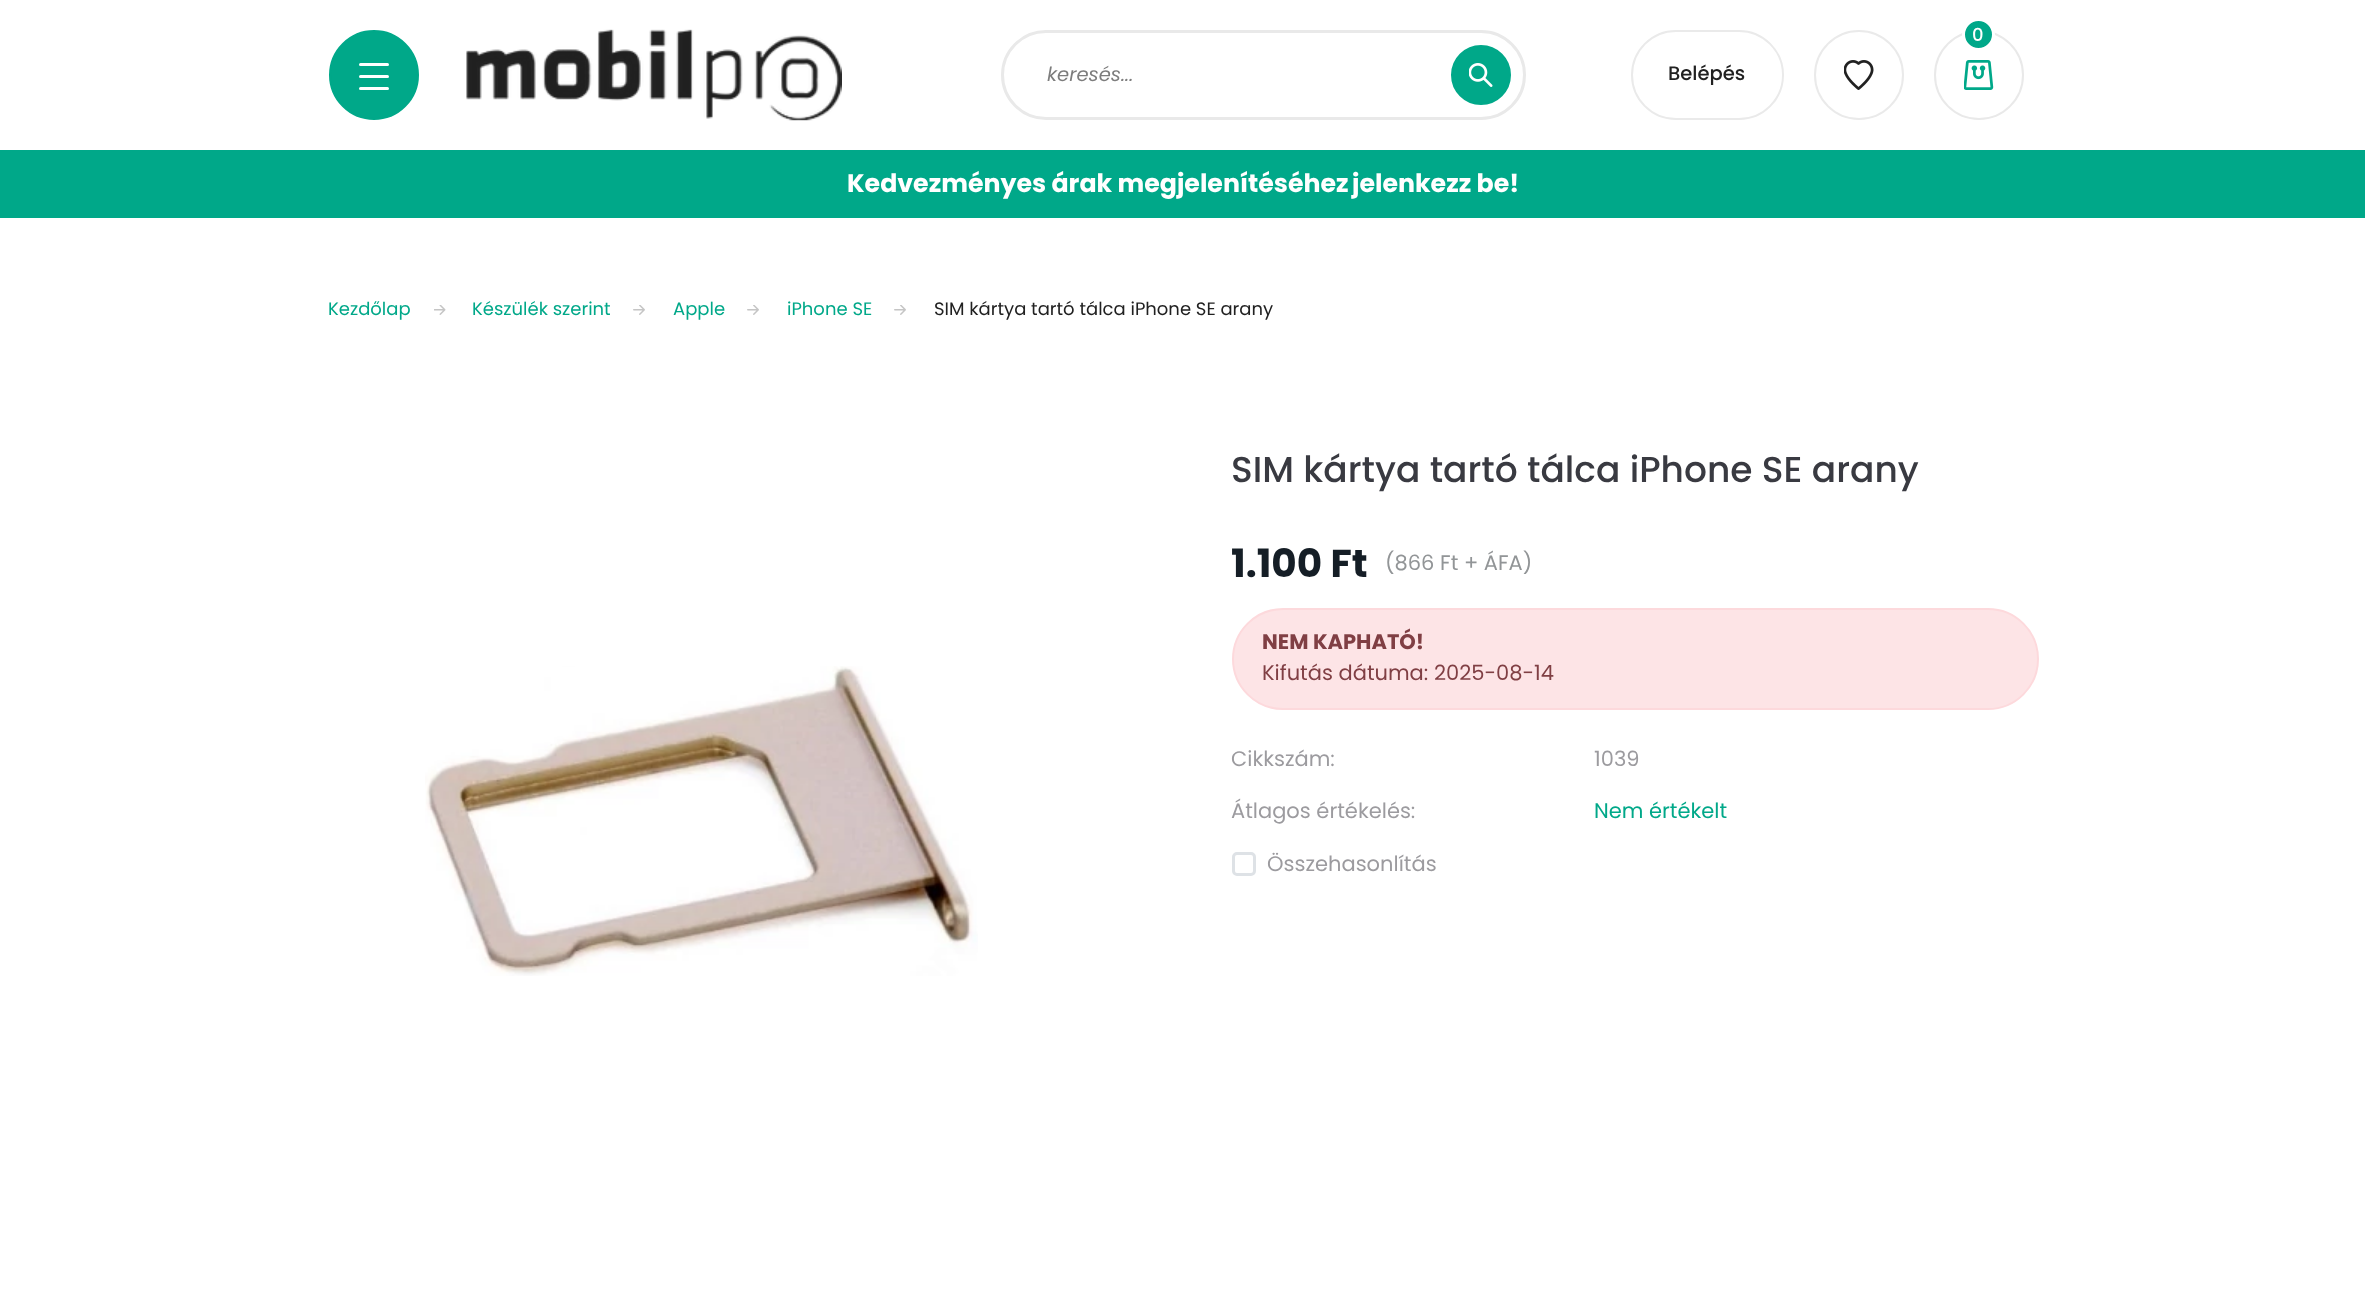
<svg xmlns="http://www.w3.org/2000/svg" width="2365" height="1296">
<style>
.a{font:italic 19.5px Poppins;fill:#7d7d7d}
.b{font:500 19.5px Poppins;fill:#212121}
.c{font:500 18px Poppins;fill:#fff}
.d{font:bold 25.25px Poppins;fill:#fff}
.e{font:18px Poppins;fill:#00a889}
.f{font:18px Poppins;fill:#212121}
.g{font:500 36px Poppins;fill:#393a41}
.h{font:bold 39px Poppins;fill:#151e26}
.i{font:21px Poppins;fill:#929597}
.j{font:bold 21px Poppins;fill:#803f44}
.k{font:21px Poppins;fill:#803f44}
.l{font:21px Poppins;fill:#9c9b9f}
.m{font:21px Poppins;fill:#00a889}
</style>
<rect width="100%" height="100%" fill="#fff"/>
<circle fill="#00a889" stroke="#00a889" stroke-width="2" cx="374" cy="75" r="44"/>
<rect fill="#fff" x="359" y="63" width="30" height="3" rx="1.5"/>
<rect fill="#fff" x="359" y="75" width="30" height="3" rx="1.5"/>
<rect fill="#fff" x="359" y="87" width="30" height="3" rx="1.5"/>
<image href="1.png" x="466" y="29" width="376" height="92"/>
<rect fill="none" stroke="#e9e9e9" stroke-width="3" x="1002.5" y="31.5" width="522" height="87" rx="43.5"/>
<circle fill="#00a889" stroke="#00a889" stroke-width="2" cx="1481" cy="75" r="29"/>
<image href="2.png" x="1469" y="63" width="24" height="24"/>
<rect fill="none" stroke="#eaeaea" stroke-width="2" x="1632" y="31" width="151" height="88" rx="44"/>
<circle fill="none" stroke="#eaeaea" stroke-width="2" cx="1859" cy="75" r="44"/>
<image href="3.png" x="1844" y="60" width="30" height="30"/>
<circle fill="none" stroke="#e9e9e9" stroke-width="2" cx="1979" cy="75" r="44"/>
<circle fill="#00a889" stroke="#fff" stroke-width="3" cx="1978.5" cy="34.5" r="15"/>
<image href="4.png" x="1964" y="60" width="30" height="30"/>
<path fill="#00a889" d="M0 150h2365v68H0z"/>
<image href="5.png" x="434" y="305" width="12" height="10"/>
<image href="6.png" x="633" y="305" width="12" height="10"/>
<image href="6.png" x="747" y="305" width="12" height="10"/>
<image href="6.png" x="894" y="305" width="12" height="10"/>
<image href="7.png" x="425" y="666" width="553" height="310"/>
<rect fill="#fde4e6" stroke="#fdd9dc" stroke-width="2" x="1233" y="609" width="805" height="100" rx="50"/>
<rect fill="none" stroke="#dee2e6" stroke-width="3" x="1233.5" y="853.5" width="21" height="21" rx="3.5"/>
<text class="a" x="1047" y="81">keresés...</text>
<text class="b" x="1668" y="80">Belépés</text>
<text class="c" x="1972" y="41">0</text>
<text class="d" x="847" y="192">Kedvezményes árak megjelenítéséhez</text>
<text class="d" x="1352" y="192">jelenkezz be!</text>
<text class="e" x="328" y="315">Kezdőlap</text>
<text class="e" x="472" y="315">Készülék szerint</text>
<text class="e" x="673" y="315">Apple</text>
<text class="e" x="787" y="315">iPhone SE</text>
<text class="f" x="934" y="315">SIM kártya tartó tálca iPhone SE arany</text>
<text class="g" x="1231" y="482">SIM kártya tartó tálca iPhone SE arany</text>
<text class="h" x="1231" y="577">1.100 Ft</text>
<text class="i" x="1385" y="570">(866 Ft + ÁFA)</text>
<text class="j" x="1262" y="649">NEM KAPHATÓ!</text>
<text class="k" x="1262" y="680">Kifutás dátuma: 2025-08-14</text>
<text class="l" x="1231" y="766">Cikkszám:</text>
<text class="l" x="1594" y="766">1039</text>
<text class="l" x="1231" y="818">Átlagos értékelés:</text>
<text class="m" x="1594" y="818">Nem értékelt</text>
<text class="l" x="1267" y="871">Összehasonlítás</text>
</svg>
